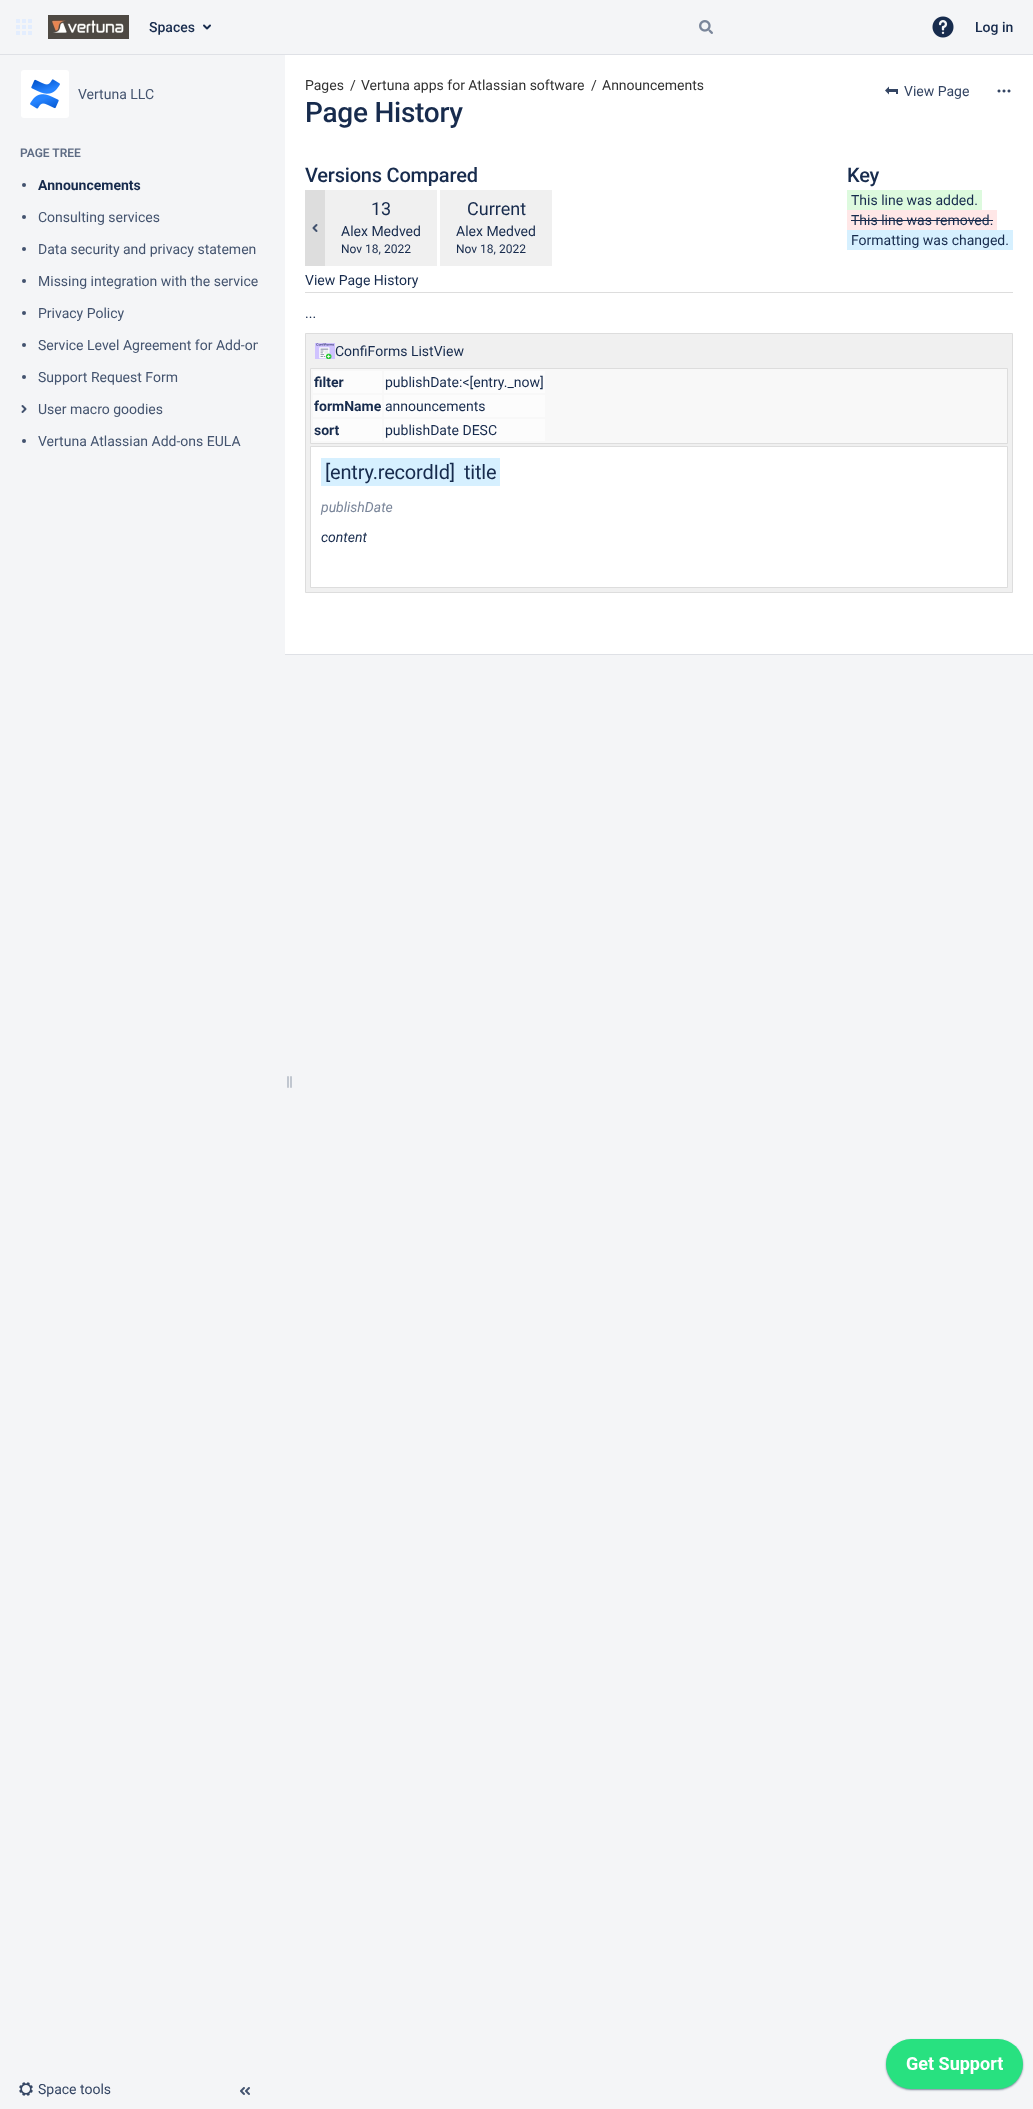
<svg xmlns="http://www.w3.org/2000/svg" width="1033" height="2109">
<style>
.a{font:500 14px Roboto;fill:#172b4d}
.b{font:14px Roboto;fill:#44546f}
.c{font:600 12px Roboto;fill:#5e6c84}
.d{font:bold 14px Roboto;fill:#172b4d}
.e{font:14px Roboto;fill:#344563}
.f{font:14px Roboto;fill:#333}
.g{font:500 28px Roboto;letter-spacing:-0.25px;fill:#172b4d}
.h{font:500 20px Roboto;letter-spacing:-0.2px;fill:#172b4d}
.i{font:14px Roboto;fill:#172b4d}
.j{font:18px Roboto;fill:#172b4d}
.k{font:12px Roboto;fill:#172b4d}
.l{font:20px Roboto;letter-spacing:-0.2px;fill:#172b4d}
.m{font:italic 14px Roboto;fill:#7a869a}
.n{font:italic 14px Roboto;fill:#172b4d}
</style>
<defs>
<clipPath id="clip1"><path d="M36 333h222v24H36z"/></clipPath>
</defs>
<rect width="100%" height="100%" fill="#f4f5f7"/>
<path fill="#dfe1e6" d="M0 54h1033v1H0z"/>
<image href="1.png" x="16" y="19" width="16" height="16"/>
<image href="2.png" x="48" y="15" width="81" height="24"/>
<image href="3.png" x="203" y="24" width="8" height="6"/>
<image href="4.png" x="699" y="20" width="14" height="14"/>
<image href="5.png" x="932" y="16" width="22" height="22"/>
<rect fill="#fff" x="21" y="70" width="48" height="48" rx="3"/>
<image href="6.png" x="30" y="79" width="30" height="30"/>
<circle fill="#42526e" cx="24" cy="185" r="2"/>
<circle fill="#42526e" cx="24" cy="217" r="2"/>
<circle fill="#42526e" cx="24" cy="249" r="2"/>
<circle fill="#42526e" cx="24" cy="281" r="2"/>
<circle fill="#42526e" cx="24" cy="313" r="2"/>
<circle fill="#42526e" cx="24" cy="345" r="2"/>
<circle fill="#42526e" cx="24" cy="377" r="2"/>
<image href="7.png" x="21" y="405" width="6" height="8"/>
<circle fill="#42526e" cx="24" cy="441" r="2"/>
<image href="8.png" x="287" y="1076" width="5" height="12"/>
<image href="9.png" x="19" y="2082" width="14" height="14"/>
<image href="10.png" x="240" y="2087" width="10" height="8"/>
<path fill="#fff" d="M285 55h748v599H285z"/>
<path fill="#dfe1e6" d="M285 654h748v1H285z"/>
<image href="11.png" x="885" y="86" width="13" height="9"/>
<image href="12.png" x="997" y="89" width="14" height="4"/>
<path fill="#ddd" d="M305 292h708v1H305z"/>
<path fill="#ddfade" d="M847 190h135v20H847z"/>
<path fill="#ffe7e7" d="M847 210h150v20H847z"/>
<path fill="#172b4d" d="M851 220h142v1H851z"/>
<path fill="#d6f0ff" d="M847 230h166v20H847z"/>
<path fill="#f0f0f0" d="M325 190h112v76H325z"/>
<path fill="#f0f0f0" d="M440 190h112v76H440z"/>
<path fill="#ddd" d="M305 190h20v76H305z"/>
<image href="13.png" x="312" y="224" width="6" height="8"/>
<path fill="#f0f0f0" stroke="#ddd" d="M305.5 333.5h707v259H305.5z"/>
<image href="14.png" x="315" y="343" width="20" height="16"/>
<path fill="#f8f8f8" stroke="#ddd" d="M310.5 368.5h697v75H310.5z"/>
<path fill="#fcfcfc" d="M313 371h69v22H313z"/>
<path fill="#fcfcfc" d="M384 371h161v22H384z"/>
<path fill="#fcfcfc" d="M313 395h69v22H313z"/>
<path fill="#fcfcfc" d="M384 395h161v22H384z"/>
<path fill="#fcfcfc" d="M313 419h69v22H313z"/>
<path fill="#fcfcfc" d="M384 419h161v22H384z"/>
<path fill="#fff" stroke="#ddd" d="M310.5 446.5h697v141H310.5z"/>
<path fill="#d6f0ff" d="M321 458h179v28H321z"/>
<image href="15.png" x="884" y="2038" width="141" height="54"/>
<text class="a" x="149" y="32">Spaces</text>
<text class="a" x="975" y="32">Log in</text>
<text class="b" x="78" y="99">Vertuna LLC</text>
<text class="c" x="20" y="157">PAGE TREE</text>
<text class="d" x="38" y="190">Announcements</text>
<text class="b" x="38" y="222">Consulting services</text>
<text class="b" x="38" y="254">Data security and privacy statemen</text>
<text class="b" x="38" y="286">Missing integration with the service</text>
<text class="b" x="38" y="318">Privacy Policy</text>
<g clip-path="url(#clip1)">
<text class="b" x="38" y="350">Service Level Agreement for Add-on</text>
</g>
<text class="b" x="38" y="382">Support Request Form</text>
<text class="b" x="38" y="414">User macro goodies</text>
<text class="b" x="38" y="446">Vertuna Atlassian Add-ons EULA</text>
<text class="e" x="38" y="2094">Space tools</text>
<text class="f" x="305" y="90">Pages</text>
<text class="f" x="350" y="90">/</text>
<text class="f" x="361" y="90">Vertuna apps for Atlassian software</text>
<text class="f" x="591" y="90">/</text>
<text class="f" x="602" y="90">Announcements</text>
<text class="g" x="305" y="122">Page History</text>
<text class="e" x="904" y="96">View Page</text>
<text class="h" x="305" y="182">Versions Compared</text>
<text class="h" x="847" y="182">Key</text>
<text class="i" x="851" y="205">This line was added.</text>
<text class="i" x="851" y="225">This line was removed.</text>
<text class="i" x="851" y="245">Formatting was changed.</text>
<text class="j" x="371" y="215">13</text>
<text class="i" x="341" y="236">Alex Medved</text>
<text class="k" x="341" y="253">Nov 18, 2022</text>
<text class="j" x="467" y="215">Current</text>
<text class="i" x="456" y="236">Alex Medved</text>
<text class="k" x="456" y="253">Nov 18, 2022</text>
<text class="i" x="305" y="285">View Page History</text>
<text class="i" x="305" y="318">...</text>
<text class="i" x="335" y="356">ConfiForms ListView</text>
<text class="d" x="314" y="387">filter</text>
<text class="i" x="385" y="387">publishDate:&lt;[entry._now]</text>
<text class="d" x="314" y="411">formName</text>
<text class="i" x="385" y="411">announcements</text>
<text class="d" x="314" y="435">sort</text>
<text class="i" x="385" y="435">publishDate DESC</text>
<text class="l" x="325" y="479">[entry.recordId]</text>
<text class="l" x="464" y="479">title</text>
<text class="m" x="321" y="512">publishDate</text>
<text class="n" x="321" y="542">content</text>
</svg>
